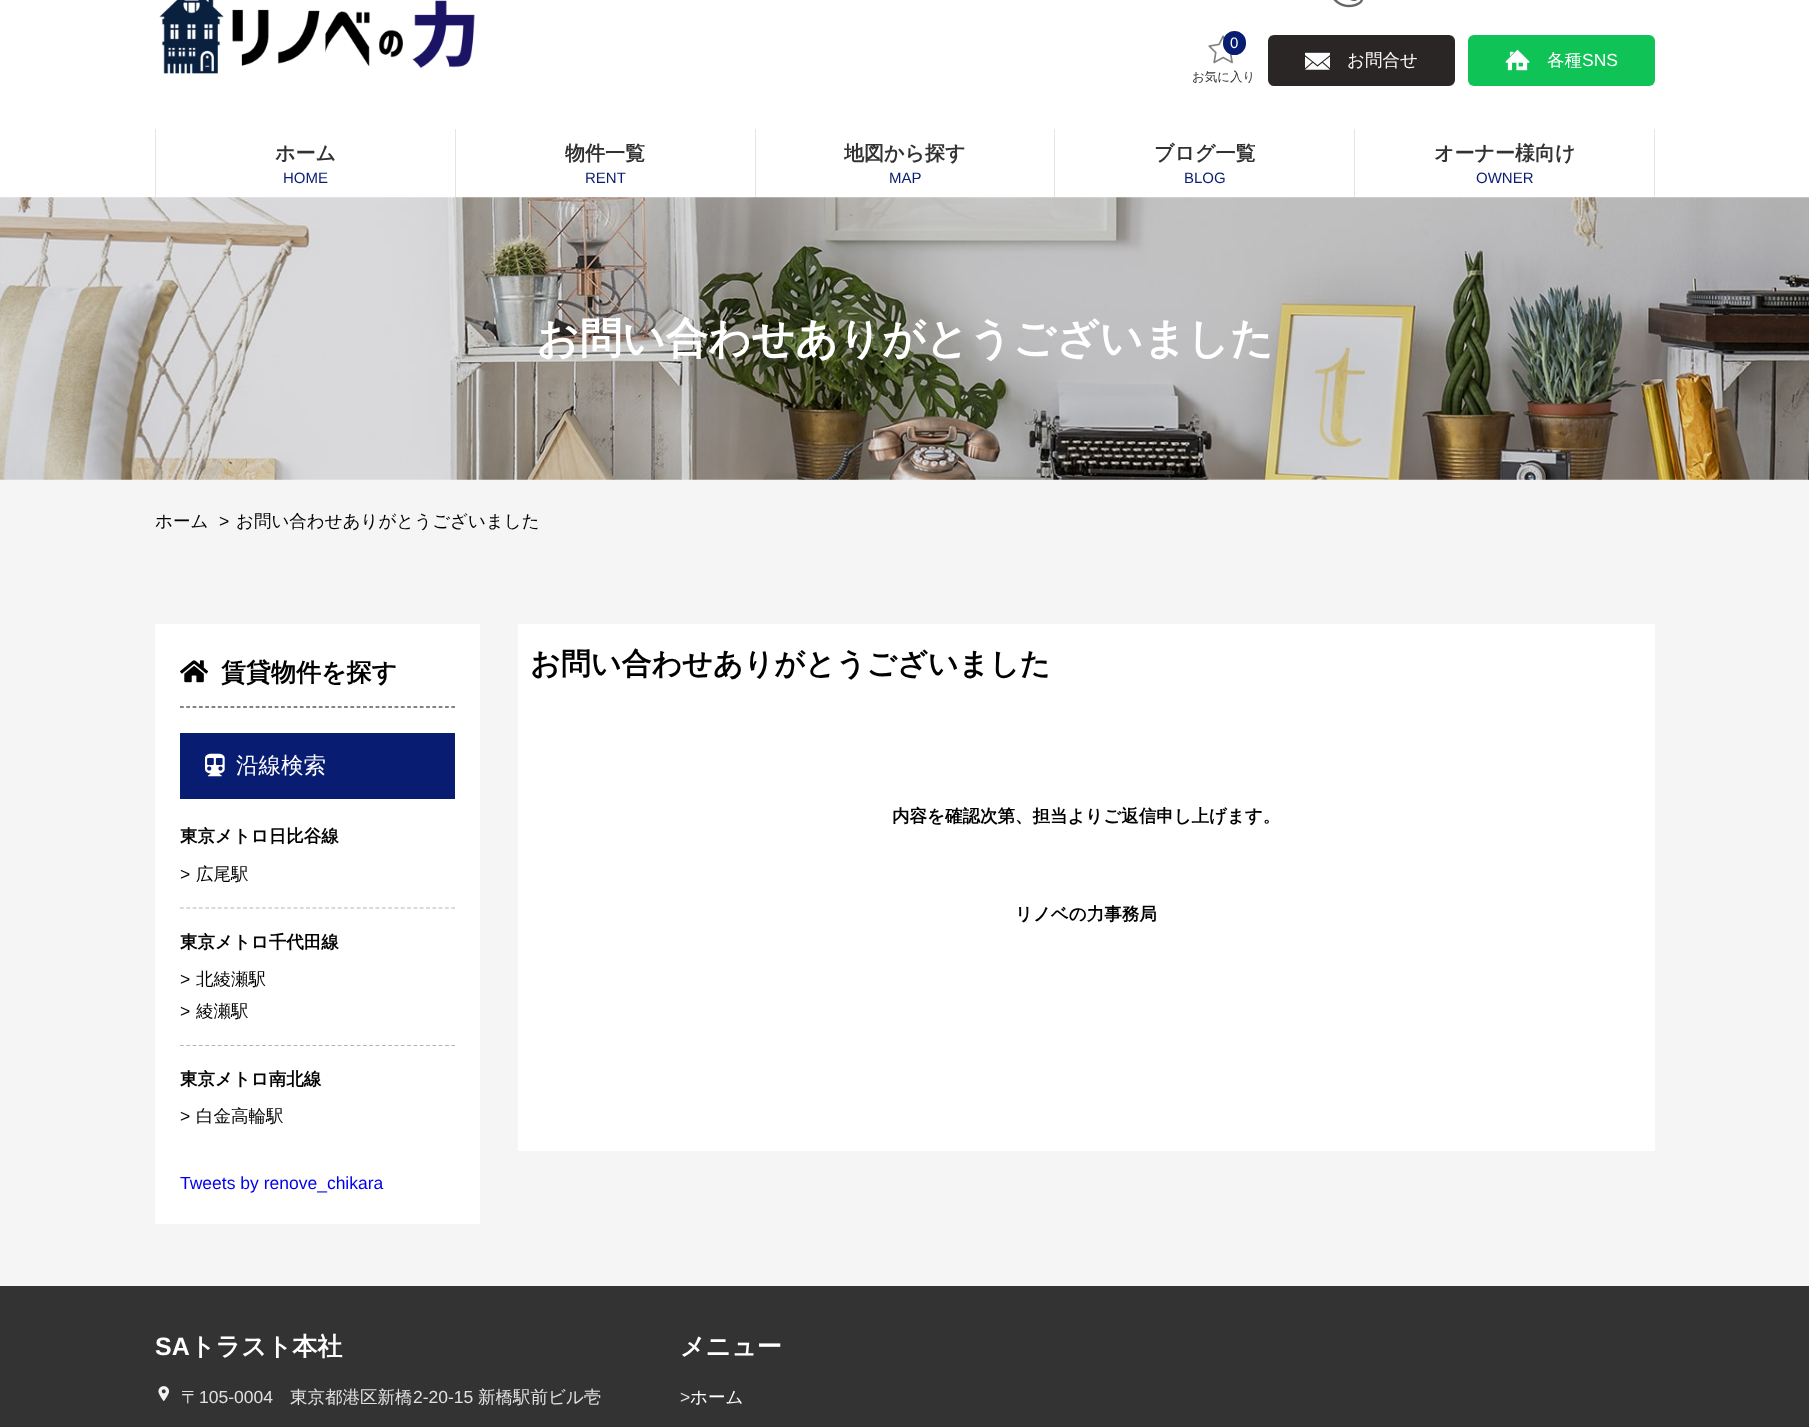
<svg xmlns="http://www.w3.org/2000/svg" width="1809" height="1427">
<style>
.a{font:15px Liberation Sans;fill:#fff}
.b{font:500 12.5px WenQuanYi Zen Hei;fill:#323232}
.c{font:500 17.5px WenQuanYi Zen Hei;fill:#fff}
.d{font:17.5px Liberation Sans;fill:#fff}
.e{font:bold 20px WenQuanYi Zen Hei;fill:#323232}
.f{font:15px Liberation Sans;fill:#081d72}
.g{font:bold 42.5px WenQuanYi Zen Hei;fill:#fff}
.h{font:500 17.5px WenQuanYi Zen Hei;fill:#000}
.i{font:17.5px Liberation Sans;fill:#000}
.j{font:bold 25px WenQuanYi Zen Hei;fill:#000}
.k{font:500 22.5px WenQuanYi Zen Hei;fill:#fff}
.l{font:bold 17.5px WenQuanYi Zen Hei;fill:#000}
.m{font:17.5px Liberation Sans;fill:#00e}
.n{font:bold 30px WenQuanYi Zen Hei;fill:#000}
.o{font:bold 25px Liberation Sans;fill:#fff}
.p{font:bold 25px WenQuanYi Zen Hei;fill:#fff}
.q{font:500 17.5px WenQuanYi Zen Hei;fill:#e0e0e0}
.r{font:17.5px Liberation Sans;fill:#e0e0e0}
</style>
<rect width="100%" height="100%" fill="#fff"/>
<image href="1.png" x="159" y="0" width="316" height="74"/>
<image href="2.png" x="1333" y="0" width="30" height="8"/>
<image href="3.png" x="1208" y="35" width="25" height="29"/>
<rect fill="#081d72" x="1223" y="31" width="23" height="24" rx="11.5"/>
<rect fill="#2b2626" x="1268" y="35" width="187" height="51" rx="6"/>
<image href="4.png" x="1305" y="52" width="25" height="18"/>
<rect fill="#0fc356" x="1468" y="35" width="187" height="51" rx="6"/>
<image href="5.png" x="1505" y="49" width="25" height="22"/>
<path fill="#e5e5e5" d="M1654 129h1v69H1654z"/>
<path fill="#e5e5e5" d="M155 129h1v69H155z"/>
<path fill="#e5e5e5" d="M455 129h1v69H455z"/>
<path fill="#e5e5e5" d="M755 129h1v69H755z"/>
<path fill="#e5e5e5" d="M1054 129h1v69H1054z"/>
<path fill="#e5e5e5" d="M1354 129h1v69H1354z"/>
<path fill="#f5f5f5" d="M0 479h1809v807H0z"/>
<image href="6.png" x="0" y="197" width="1809" height="283"/>
<path fill="#fff" d="M155 624h325v600H155z"/>
<path fill="none" stroke="#0e0409" stroke-width="1.2" stroke-dasharray="3.75 2.56" d="M180 707h275"/>
<image href="7.png" x="180" y="660" width="29" height="23"/>
<path fill="#081d72" d="M180 733h275v66H180z"/>
<image href="8.png" x="205" y="753" width="20" height="24"/>
<path fill="none" stroke="#b3b3b3" stroke-width="1.2" stroke-dasharray="3.75 2.56" d="M180 908h275"/>
<path fill="none" stroke="#b3b3b3" stroke-width="1.2" stroke-dasharray="3.75 2.56" d="M180 1045.5h275"/>
<path fill="#fff" d="M518 624h1137v527H518z"/>
<path fill="#333" d="M0 1286h1809v141H0z"/>
<image href="9.png" x="158" y="1386" width="12" height="15"/>
<text class="a" x="1230" y="48">0</text>
<text class="b" x="1192" y="81">お気に入り</text>
<text class="c" x="1347" y="66">お問合せ</text>
<text class="c" x="1547" y="66">各種</text>
<text class="d" x="1582" y="66">SNS</text>
<text class="e" x="275" y="160">ホーム</text>
<text class="f" x="283" y="183">HOME</text>
<text class="e" x="565" y="160">物件一覧</text>
<text class="f" x="585" y="183">RENT</text>
<text class="e" x="844" y="160">地図から探す</text>
<text class="f" x="889" y="183">MAP</text>
<text class="e" x="1154" y="160">ブログ一覧</text>
<text class="f" x="1184" y="183">BLOG</text>
<text class="e" x="1434" y="160">オーナー様向け</text>
<text class="f" x="1476" y="183">OWNER</text>
<text class="g" x="536" y="353">お問い合わせありがとうございました</text>
<text class="h" x="155" y="527">ホーム</text>
<text class="i" x="219" y="527">&gt;</text>
<text class="h" x="236" y="527">お問い合わせありがとうございました</text>
<text class="j" x="221" y="681">賃貸物件を探す</text>
<text class="k" x="236" y="773">沿線検索</text>
<text class="l" x="180" y="842">東京メトロ日比谷線</text>
<text class="i" x="180" y="880">&gt;</text>
<text class="h" x="196" y="880">広尾駅</text>
<text class="l" x="180" y="948">東京メトロ千代田線</text>
<text class="i" x="180" y="985">&gt;</text>
<text class="h" x="196" y="985">北綾瀬駅</text>
<text class="i" x="180" y="1017">&gt;</text>
<text class="h" x="196" y="1017">綾瀬駅</text>
<text class="l" x="180" y="1085">東京メトロ南北線</text>
<text class="i" x="180" y="1122">&gt;</text>
<text class="h" x="196" y="1122">白金高輪駅</text>
<text class="m" x="180" y="1189">Tweets by renove_chikara</text>
<text class="n" x="530" y="674">お問い合わせありがとうございました</text>
<text class="l" x="892" y="822">内容を確認次第、担当よりご返信申し上げます。</text>
<text class="l" x="1015" y="920">リノベの力事務局</text>
<text class="o" x="155" y="1355">SA</text>
<text class="p" x="190" y="1355">トラスト本社</text>
<text class="q" x="181" y="1403">〒</text>
<text class="r" x="199" y="1403">105-0004</text>
<text class="q" x="290" y="1403">東京都港区新橋</text>
<text class="r" x="413" y="1403">2-20-15</text>
<text class="q" x="478" y="1403">新橋駅前ビル壱</text>
<text class="p" x="680" y="1355">メニュー</text>
<text class="r" x="680" y="1403">&gt;</text>
<text class="c" x="690" y="1403">ホーム</text>
</svg>
